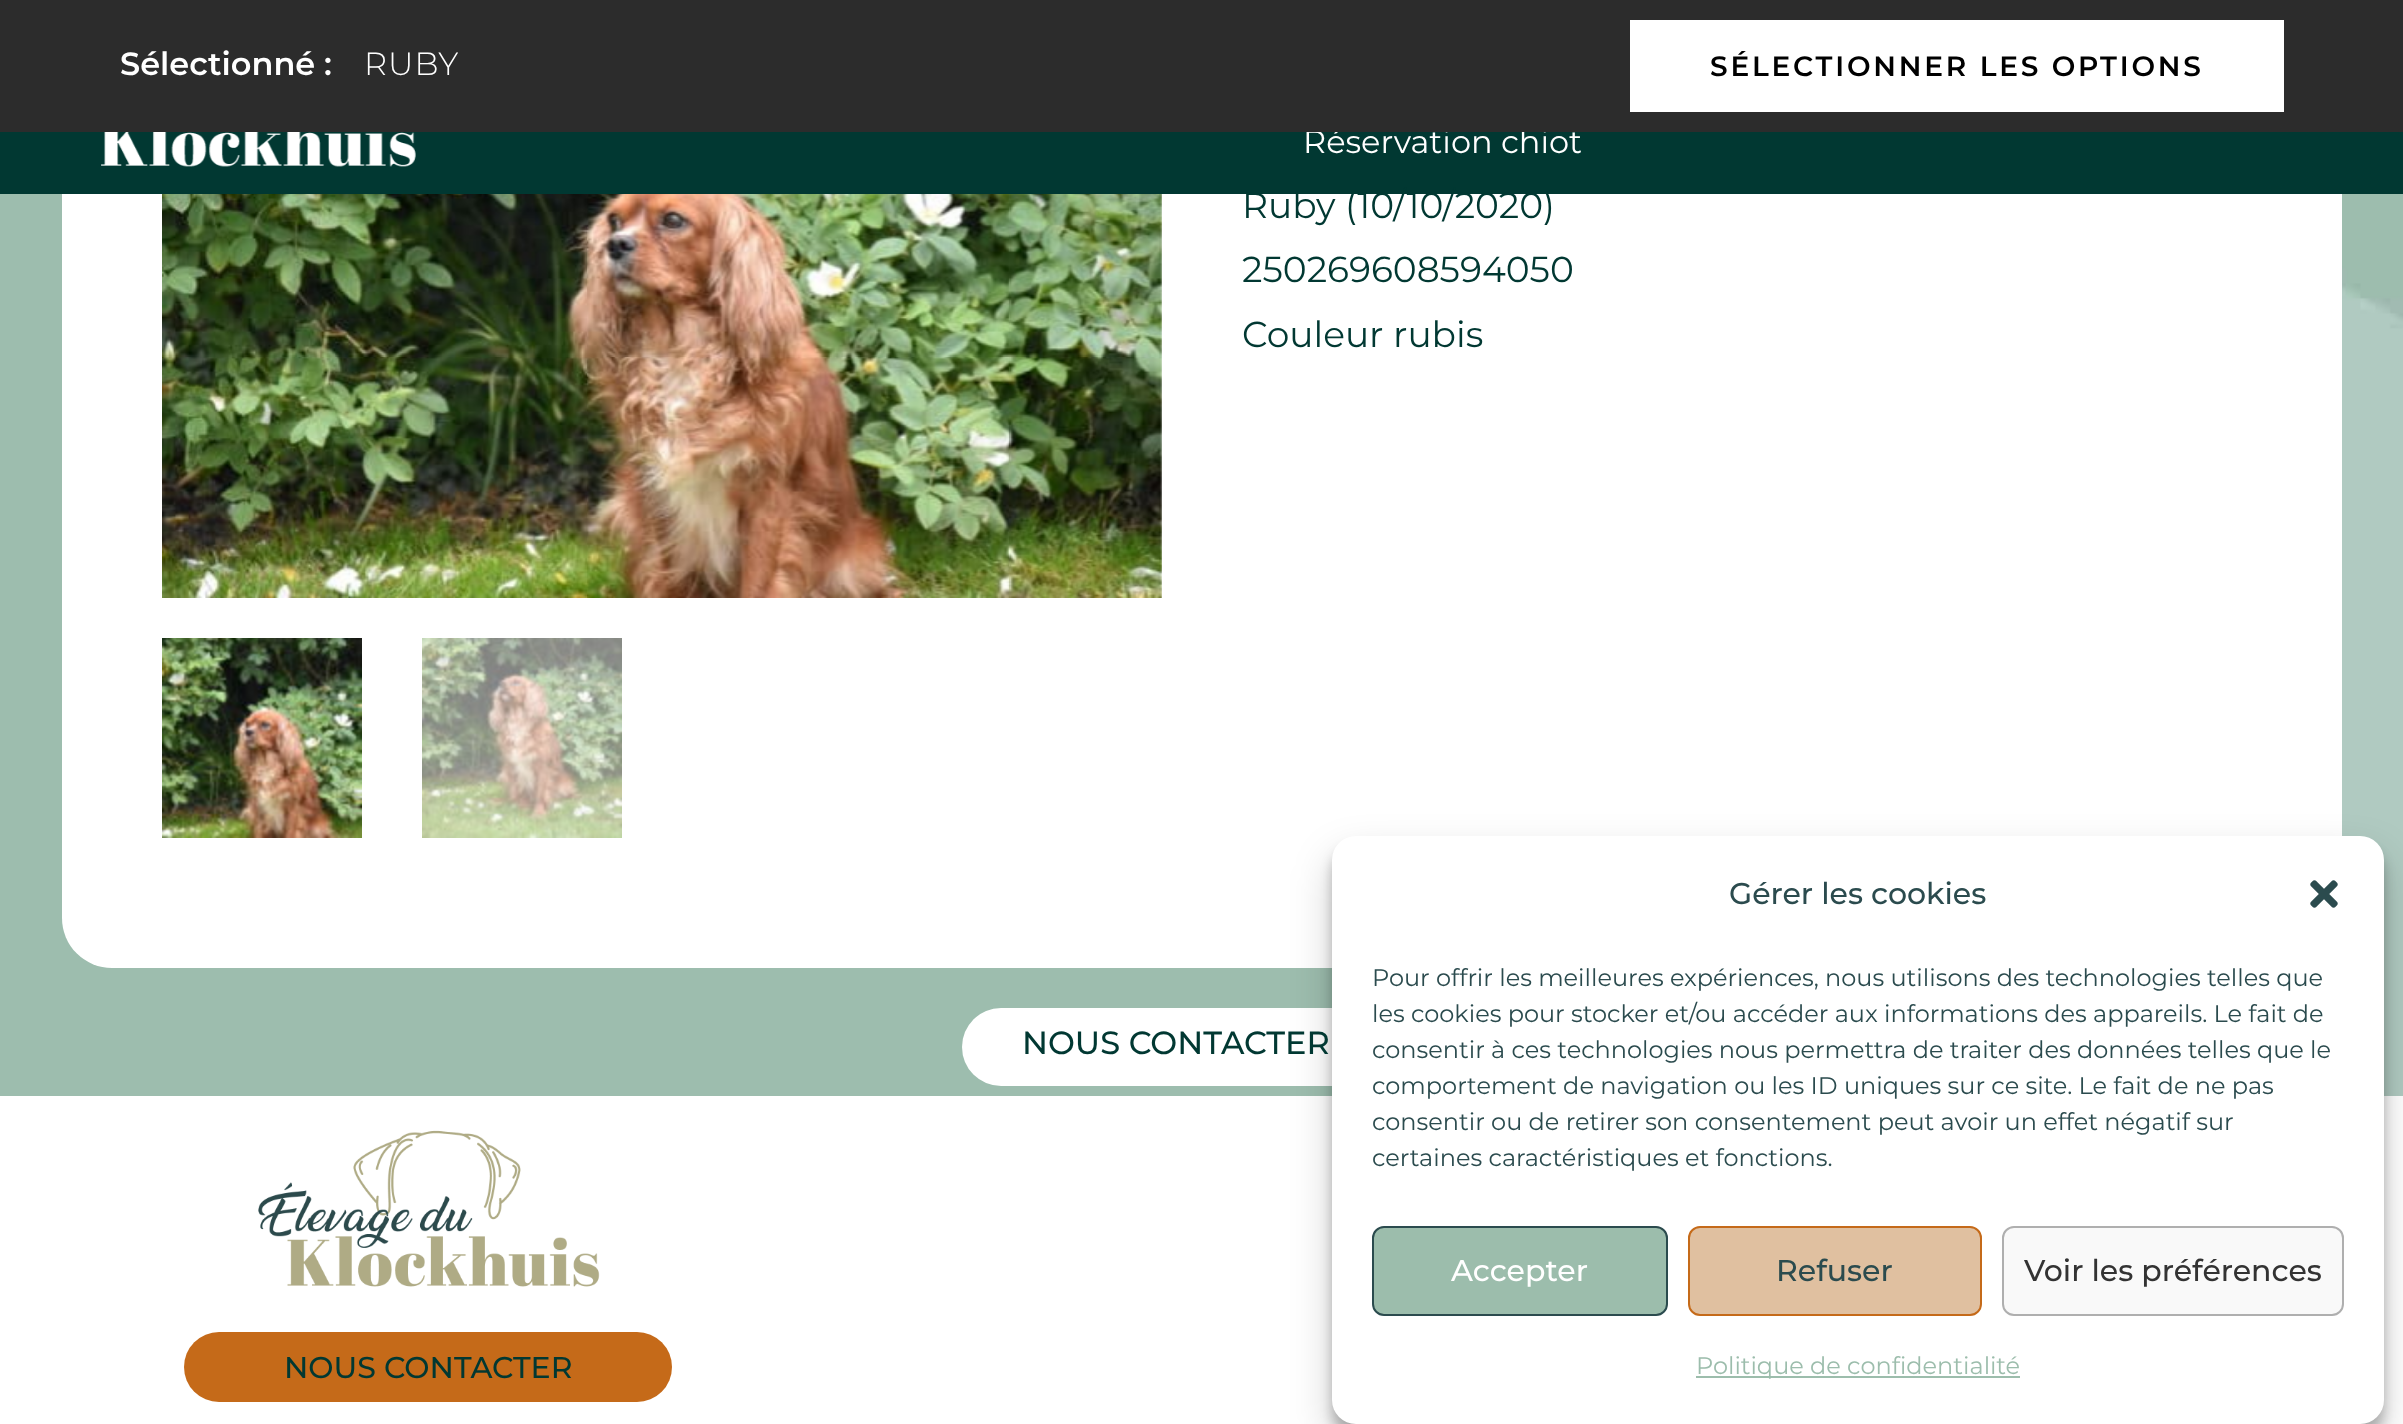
<svg xmlns="http://www.w3.org/2000/svg" width="2403" height="1424">
<style>
.a{font:32px Montserrat;fill:#fff}
.b{font:600 28px Montserrat;letter-spacing:2.8px;fill:#000}
.c{font:300 32px Montserrat;letter-spacing:1px;fill:#fff}
.d{font:600 32px Montserrat;fill:#fff}
.e{font:36px Montserrat;fill:#013832}
.f{font:500 32px Montserrat;fill:#013832}
.g{font:500 30px Montserrat;fill:#013832}
.h{font:500 30px Montserrat;fill:#2b4b4e}
.i{font:24px Montserrat;fill:#2b4b4e}
.j{font:500 30px Montserrat;fill:#fff}
.k{font:500 30px Montserrat;fill:#333}
.l{font:24px Montserrat;fill:#9cbdac}
</style>
<rect width="100%" height="100%" fill="#fff"/>
<image href="2.png" x="0" y="194" width="2403" height="902"/>
<rect fill="#fff" x="62" y="-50" width="2280" height="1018" rx="50"/>
<path fill="#013832" d="M0 132h2403v62H0z"/>
<image href="1.png" x="101" y="132" width="315" height="35"/>
<image href="3.png" x="162" y="194" width="1000" height="404"/>
<image href="4.png" x="162" y="638" width="200" height="200"/>
<image href="5.png" x="422" y="638" width="200" height="200"/>
<rect fill="#fff" x="962" y="1008" width="480" height="78" rx="39"/>
<image href="6.png" x="258" y="1130" width="342" height="157"/>
<rect fill="#c56a19" x="184" y="1332" width="488" height="70" rx="35"/>
<rect fill="#0000003b" filter="blur(6px)" x="1332" y="848" width="1052" height="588" rx="24"/>
<rect fill="#00000030" filter="blur(20px)" x="1332" y="856" width="1052" height="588" rx="24"/>
<rect fill="#fff" x="1332" y="836" width="1052" height="588" rx="24"/>
<image href="7.png" x="2310" y="880" width="28" height="28"/>
<rect fill="#9cbdac" stroke="#2b4b4e" stroke-width="2" x="1373" y="1227" width="294" height="88" rx="11"/>
<rect fill="#e0c0a0" stroke="#c56a19" stroke-width="2" x="1689" y="1227" width="292" height="88" rx="11"/>
<rect fill="#f9f9f9" stroke="#afafaf" stroke-width="2" x="2003" y="1227" width="340" height="88" rx="11"/>
<path fill="#9cbdac" d="M1696 1376h324v2H1696z"/>
<text class="a" x="1303" y="153">Réservation chiot</text>
<path fill="#2c2c2c" d="M0 0h2403v132H0z"/>
<path fill="#fff" d="M1630 20h654v92H1630z"/>
<text class="b" x="1710" y="76">SÉLECTIONNER LES OPTIONS</text>
<text class="c" x="364" y="75">RUBY</text>
<text class="d" x="120" y="75">Sélectionné :</text>
<text class="e" x="1242" y="218">Ruby (10/10/2020)</text>
<text class="e" x="1242" y="282">250269608594050</text>
<text class="e" x="1242" y="347">Couleur rubis</text>
<text class="f" x="1022" y="1054">NOUS CONTACTER</text>
<text class="g" x="284" y="1378">NOUS CONTACTER</text>
<text class="h" x="1729" y="904">Gérer les cookies</text>
<text class="i" x="1372" y="986">Pour offrir les meilleures expériences, nous utilisons des technologies telles que</text>
<text class="i" x="1372" y="1022">les cookies pour stocker et/ou accéder aux informations des appareils. Le fait de</text>
<text class="i" x="1372" y="1058">consentir à ces technologies nous permettra de traiter des données telles que le</text>
<text class="i" x="1372" y="1094">comportement de navigation ou les ID uniques sur ce site. Le fait de ne pas</text>
<text class="i" x="1372" y="1130">consentir ou de retirer son consentement peut avoir un effet négatif sur</text>
<text class="i" x="1372" y="1166">certaines caractéristiques et fonctions.</text>
<text class="j" x="1451" y="1281">Accepter</text>
<text class="h" x="1776" y="1281">Refuser</text>
<text class="k" x="2024" y="1281">Voir les préférences</text>
<text class="l" x="1696" y="1374">Politique de confidentialité</text>
</svg>
